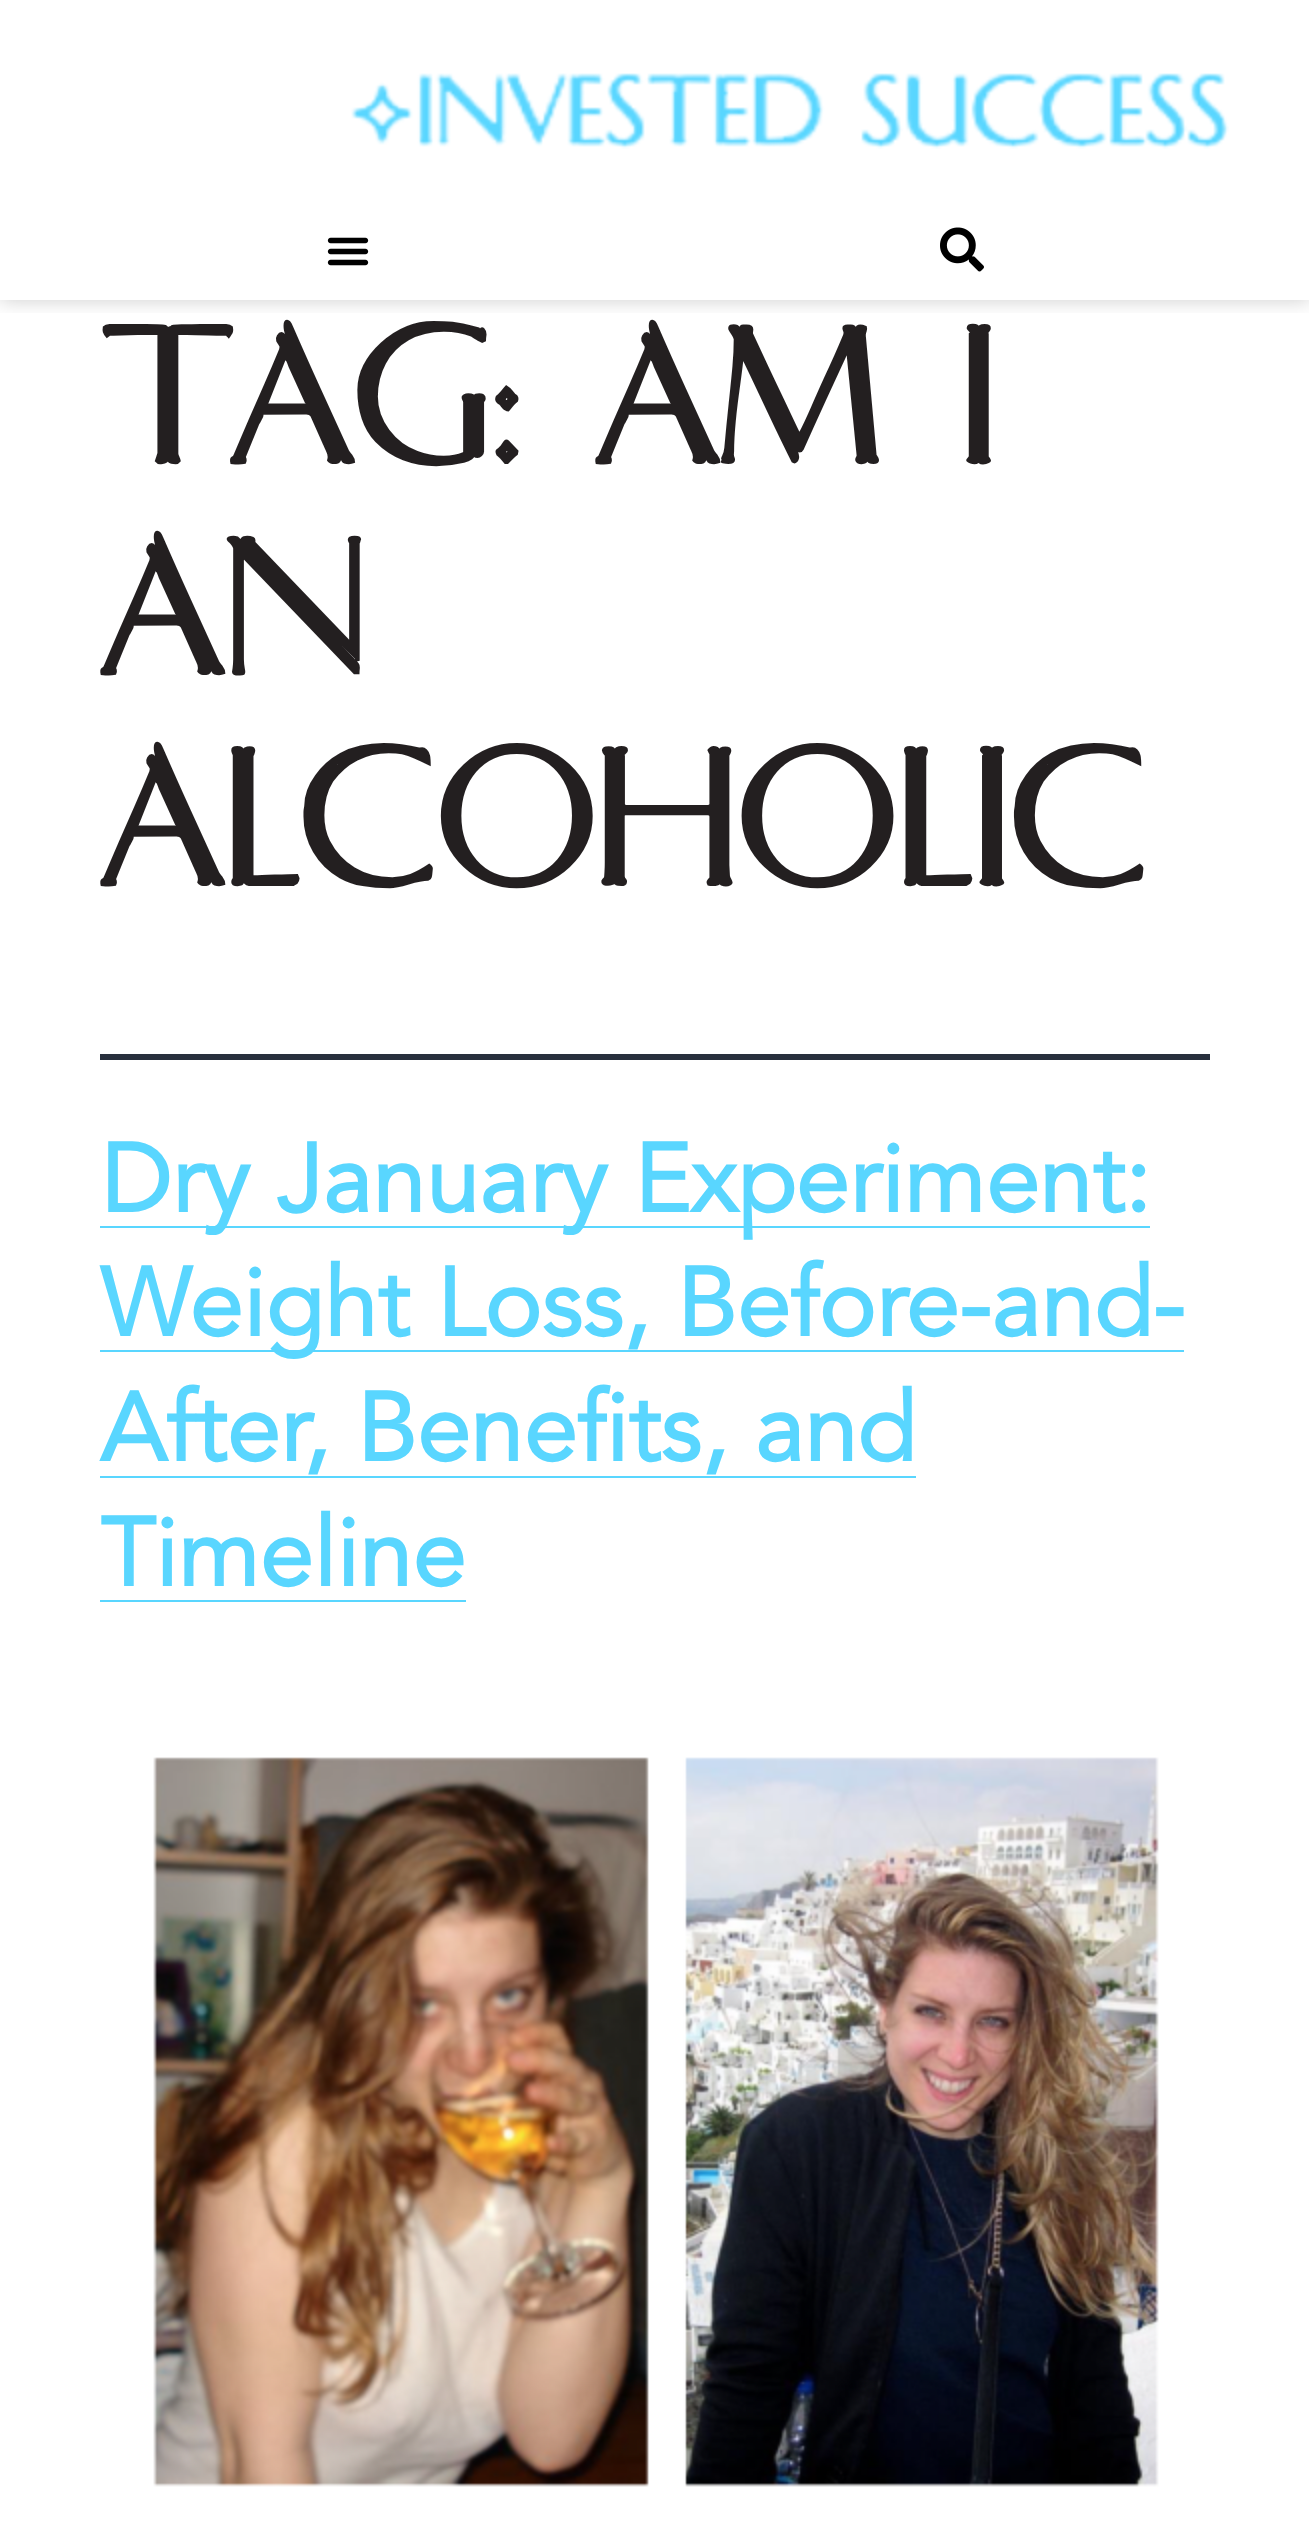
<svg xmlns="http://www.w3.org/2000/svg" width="1309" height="2547">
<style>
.a{font:bold 192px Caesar;fill:#231f20}
.b{font:bold 96px 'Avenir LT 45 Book';fill:#59d6ff}
</style>
<defs>
<clipPath id="clip1"><path d="M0 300h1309v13H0z"/></clipPath>
</defs>
<rect width="100%" height="100%" fill="#fff"/>
<g clip-path="url(#clip1)">
<path fill="#00000033" filter="blur(10px)" d="M0 0h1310v300H0z"/>
</g>
<image href="1.png" x="351" y="73" width="878" height="76"/>
<image href="2.png" x="327" y="237" width="42" height="29"/>
<image href="3.png" x="940" y="227" width="44" height="45"/>
<path fill="#28303d" d="M100 1054h1110v6H100z"/>
<path fill="#59d6ff" d="M100 1226h1050v2H100z"/>
<path fill="#59d6ff" d="M100 1350h1084v2H100z"/>
<path fill="#59d6ff" d="M100 1476h816v2H100z"/>
<path fill="#59d6ff" d="M100 1600h366v2H100z"/>
<image href="4.png" x="153" y="1757" width="1006" height="730"/>
<text class="a" x="100" y="464">Tag: am I</text>
<text class="a" x="100" y="675">an</text>
<text class="a" x="100" y="886">alcoholic</text>
<text class="b" x="100" y="1212">Dry January Experiment:</text>
<text class="b" x="100" y="1336">Weight Loss, Before-and-</text>
<text class="b" x="100" y="1461">After, Benefits, and</text>
<text class="b" x="100" y="1586">Timeline</text>
</svg>
